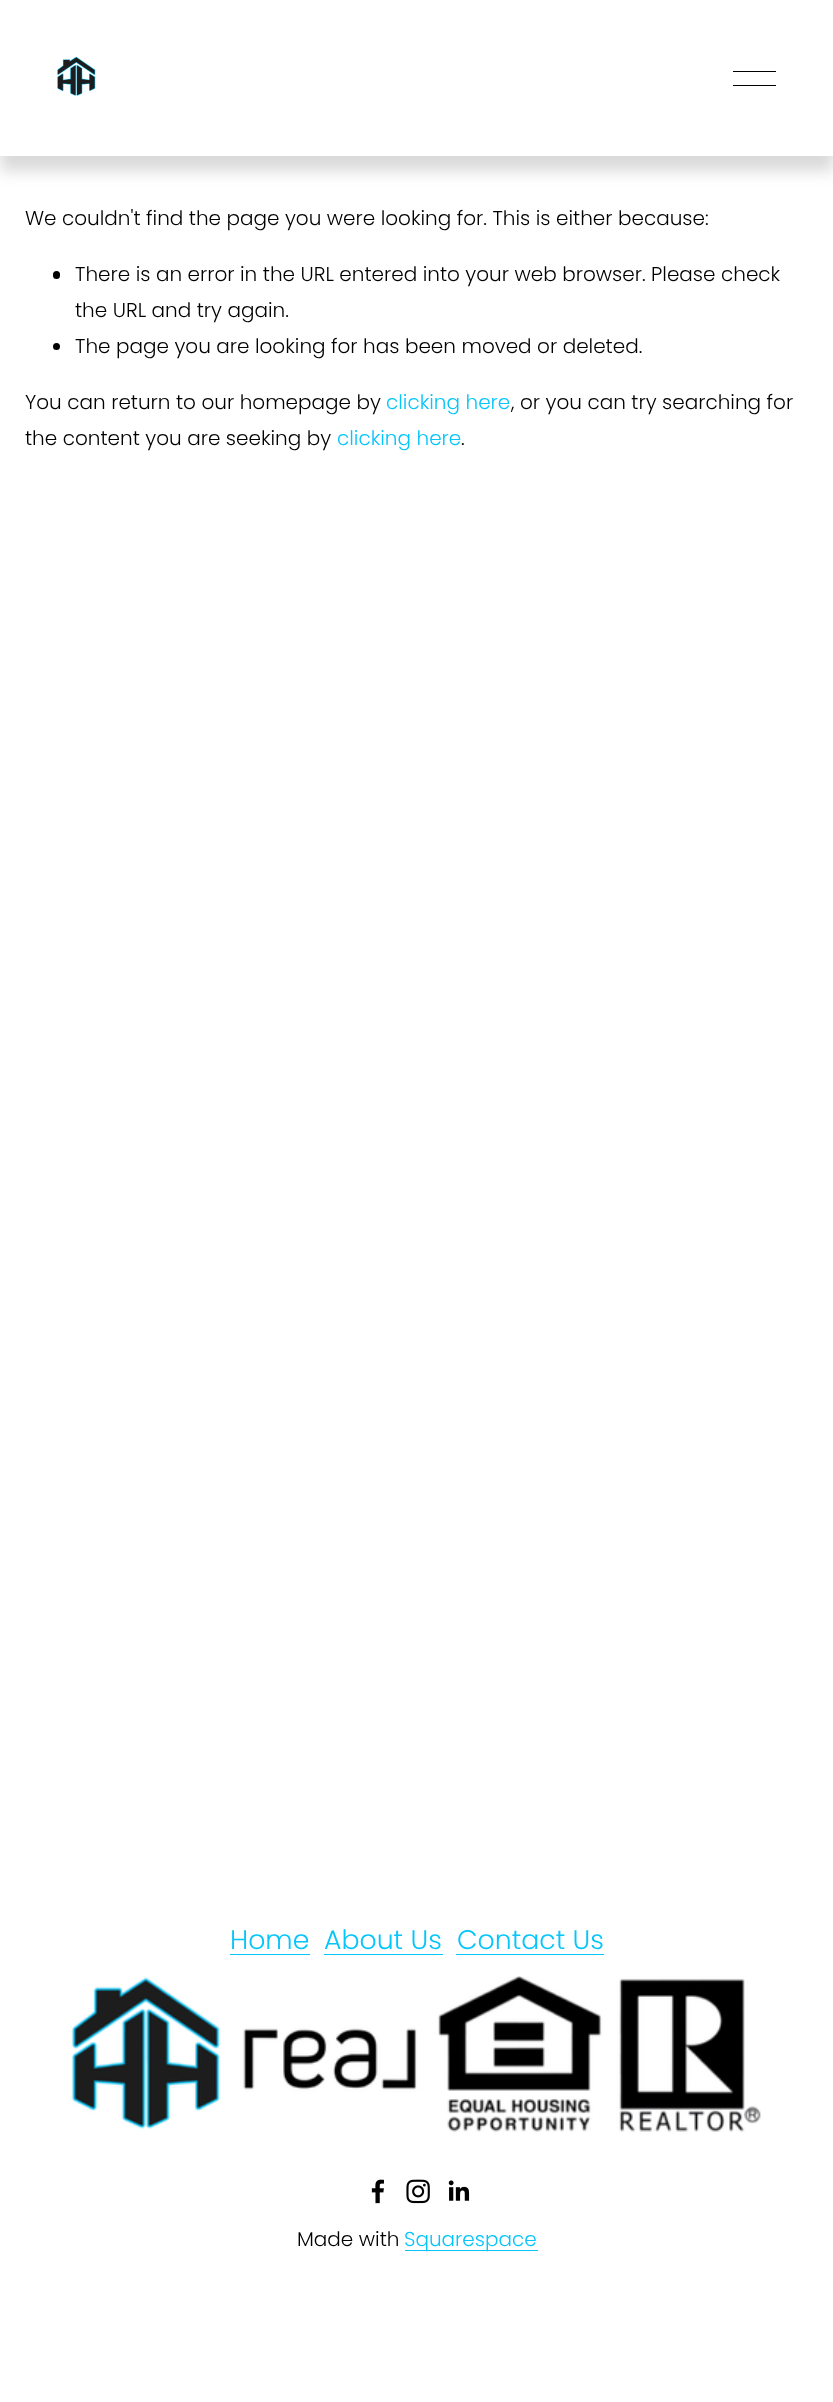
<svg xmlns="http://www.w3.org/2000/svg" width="833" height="2402">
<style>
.a{font:300 20px Poppins;fill:#000}
.b{font:300 20px Poppins;fill:#05c5fa}
.c{font:300 26.75px Poppins;fill:#05c5fa}
</style>
<defs>
<clipPath id="clip1"><path d="M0 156h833v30H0z"/></clipPath>
</defs>
<rect width="100%" height="100%" fill="#fff"/>
<g clip-path="url(#clip1)">
<path fill="#d9d9d9" filter="blur(7.5px)" d="M0 15h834v156H0z"/>
</g>
<image href="1.png" x="57" y="56" width="39" height="40"/>
<path fill="#000" d="M733 71h43v1H733z"/>
<path fill="#000" d="M733 85h43v1H733z"/>
<rect fill="#000" x="53" y="271" width="7" height="8" rx="3.5"/>
<circle fill="#000" cx="56.5" cy="346.5" r="3.5"/>
<path fill="#05c5fa" d="M230 1954h80v1H230z"/>
<path fill="#05c5fa" d="M324 1954h119v1H324z"/>
<path fill="#05c5fa" d="M456 1954h148v1H456z"/>
<image href="2.png" x="71" y="1976" width="690" height="186"/>
<image href="3.png" x="371" y="2179" width="13" height="25"/>
<image href="4.png" x="406" y="2179" width="24" height="25"/>
<image href="5.png" x="448" y="2180" width="22" height="21"/>
<path fill="#05c5fa" d="M405 2250h133v1H405z"/>
<text class="a" x="25" y="225">We couldn't find the page you were looking for. This is either because:</text>
<text class="a" x="75" y="281">There is an error in the URL entered into your web browser. Please check</text>
<text class="a" x="75" y="317">the URL and try again.</text>
<text class="a" x="75" y="353">The page you are looking for has been moved or deleted.</text>
<text class="a" x="25" y="409">You can return to our homepage by</text>
<text class="b" x="386" y="409">clicking here</text>
<text class="a" x="511" y="409">, or you can try searching for</text>
<text class="a" x="25" y="445">the content you are seeking by</text>
<text class="b" x="337" y="445">clicking here</text>
<text class="a" x="461" y="445">.</text>
<text class="c" x="230" y="1949">Home</text>
<text class="c" x="324" y="1949">About Us</text>
<text class="c" x="457" y="1949">Contact Us</text>
<text class="a" x="297" y="2246">Made with</text>
<text class="b" x="404" y="2246">Squarespace</text>
</svg>
